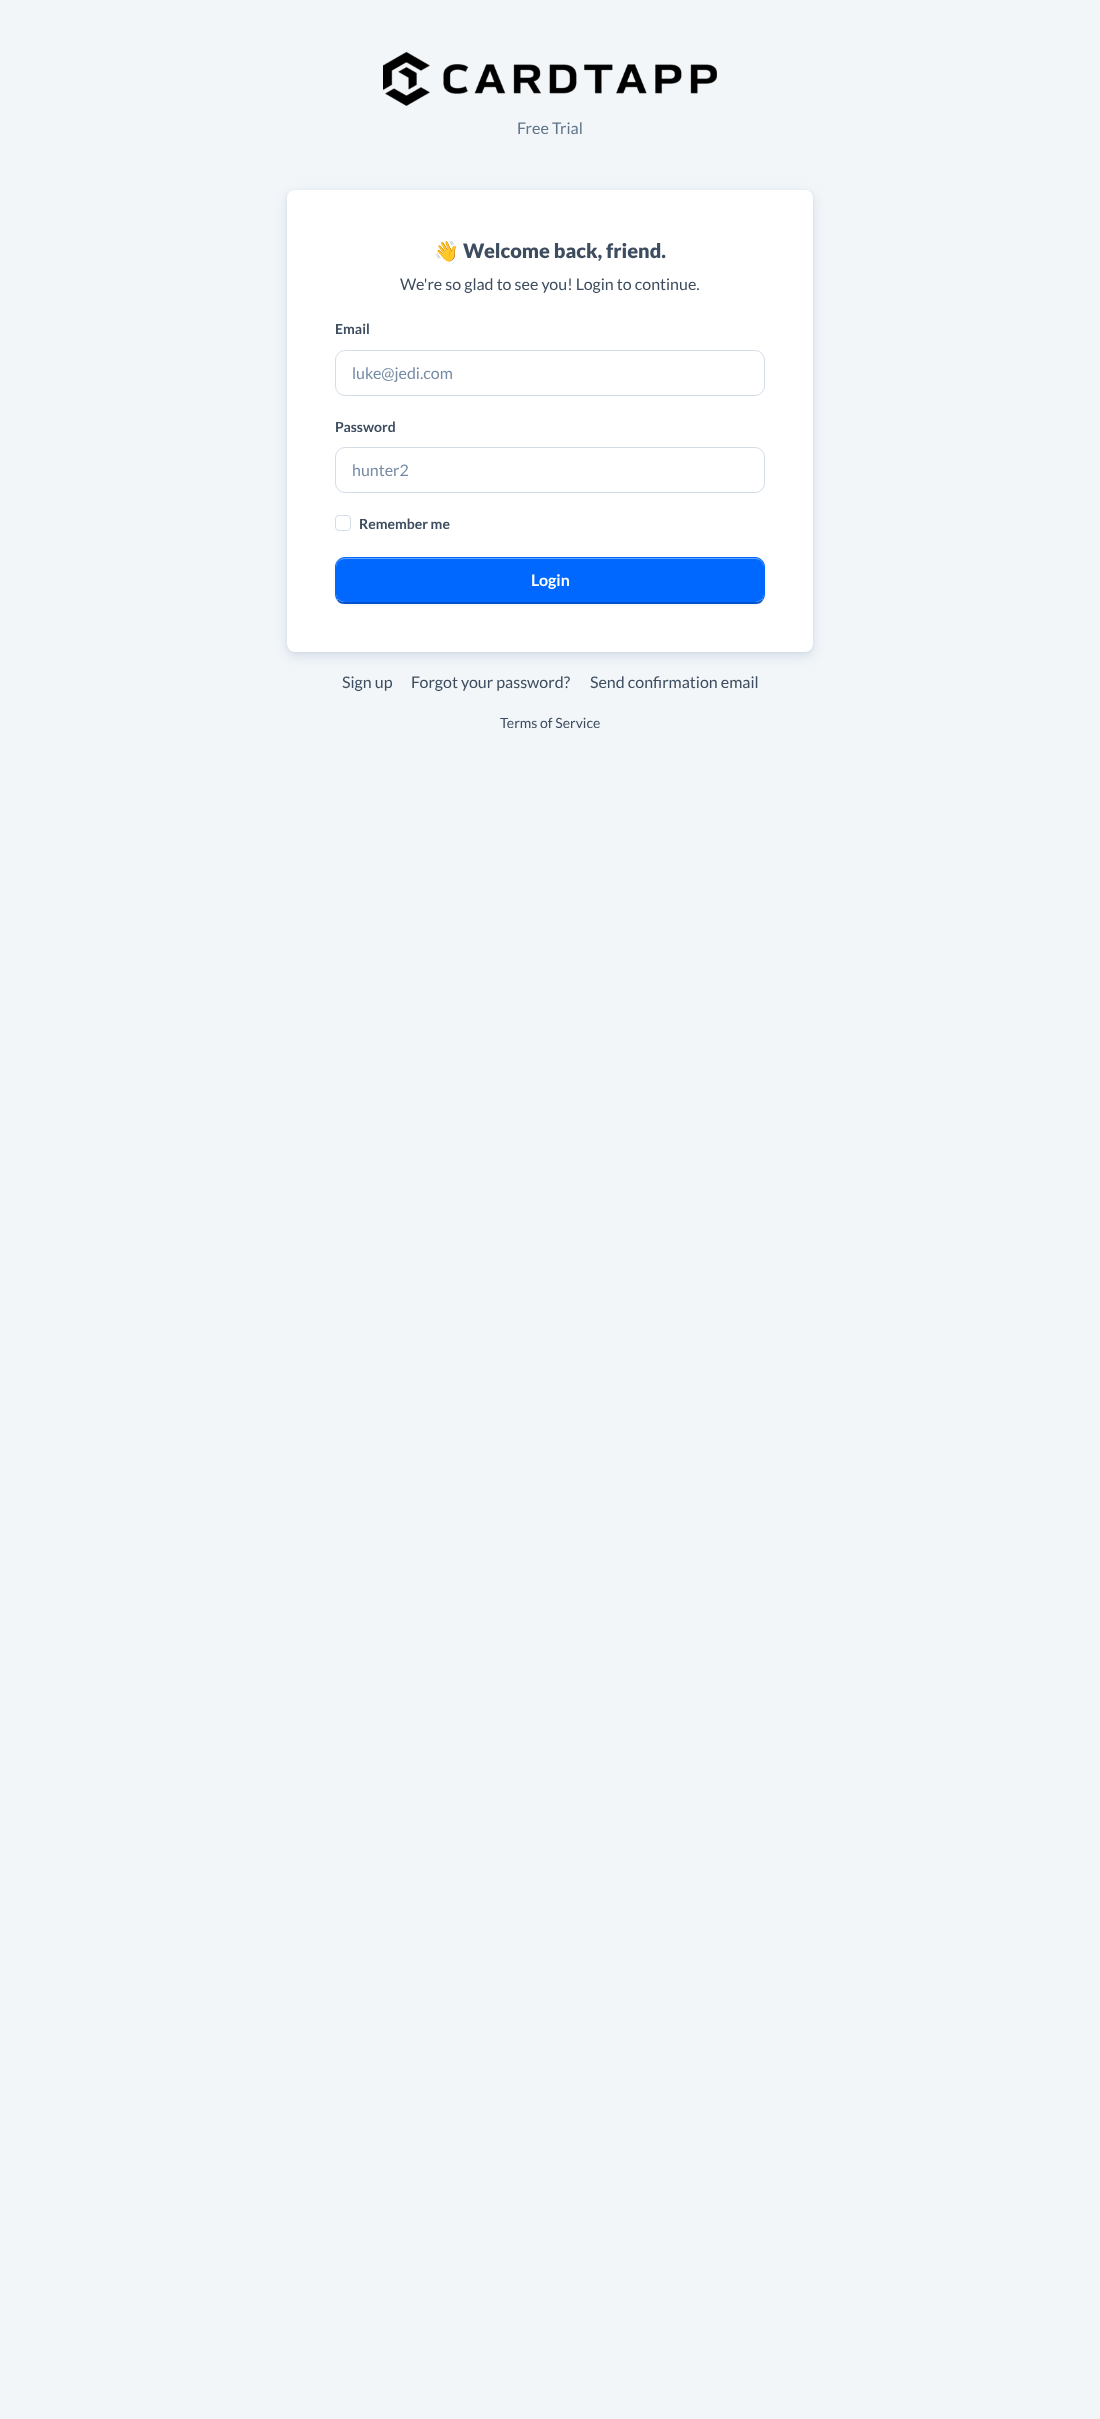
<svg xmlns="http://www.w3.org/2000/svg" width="1100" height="2419">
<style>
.a{font:16px Lato;fill:#60748a}
.b{font:bold 20px Noto Color Emoji;fill:#3d4d5f}
.c{font:900 20px Lato;fill:#3d4d5f}
.d{font:16px Lato;fill:#3d4d5f}
.e{font:bold 14px Lato;fill:#3d4d5f}
.f{font:16px Lato;fill:#758ba5}
.g{font:bold 16px Lato;fill:#fff}
.h{font:14px Lato;fill:#3d4d5f}
</style>
<rect width="100%" height="100%" fill="#f2f6f9"/>
<image href="1.png" x="383" y="52" width="334" height="54"/>
<rect fill="#d4dde7" filter="blur(6px)" x="287" y="194" width="526" height="462" rx="8"/>
<rect fill="#d4dde7" filter="blur(1px)" x="287" y="191" width="526" height="462" rx="8"/>
<rect fill="#fff" x="287" y="190" width="526" height="462" rx="8"/>
<rect fill="none" stroke="#d4dde7" x="335.5" y="350.5" width="429" height="45" rx="9.5"/>
<rect fill="none" stroke="#d4dde7" x="335.5" y="447.5" width="429" height="45" rx="9.5"/>
<rect fill="none" stroke="#d4dde7" x="335.5" y="515.5" width="15" height="15" rx="3.5"/>
<rect fill="#0000000d" filter="blur(1.5px)" x="335" y="558" width="430" height="47" rx="10"/>
<path fill="#0068ff" d="M345 558h410c5 0 9 4 9 9v27c0 4-4 8-9 8h-410c-5 0-9-4-9-8v-27c0-5 4-9 9-9z"/>
<path fill="#66a3ff" d="M345 559h410c5 0 9 4 9 9v-1c0-5-4-9-9-9h-410c-5 0-9 4-9 9v1c0-5 4-9 9-9z"/>
<path fill="#0068ff" d="M345 557c-3 0-5 1-7 3l1 1c1-2 3-3 6-3h410c3 0 5 1 6 3l1-1c-2-2-4-3-7-3z"/>
<path fill="#0068ff" d="M765 594v-27c0-3-1-5-3-7l-1 1c2 1 3 3 3 6v27c0 2-1 3-2 5l1 1c1-1 2-4 2-6z"/>
<path fill="#0052cc" d="M345 604h410c4 0 6-1 8-4l-1-1c-1 2-4 3-7 3h-410c-3 0-6-1-7-3l-1 1c2 3 4 4 8 4z"/>
<path fill="#0068ff" d="M335 567v27c0 2 1 5 2 6l1-1c-1-2-2-3-2-5v-27c0-3 1-5 3-6l-1-1c-2 2-3 4-3 7z"/>
<text class="a" x="517" y="134">Free Trial</text>
<text class="b" x="434" y="258">👋</text>
<text class="c" x="463" y="258">Welcome back, friend.</text>
<text class="d" x="400" y="290">We're so glad to see you! Login to continue.</text>
<text class="e" x="335" y="334">Email</text>
<text class="f" x="352" y="379">luke@jedi.com</text>
<text class="e" x="335" y="432">Password</text>
<text class="f" x="352" y="476">hunter2</text>
<text class="e" x="359" y="529">Remember me</text>
<text class="g" x="531" y="586">Login</text>
<text class="d" x="342" y="688">Sign up</text>
<text class="d" x="411" y="688">Forgot your password?</text>
<text class="d" x="590" y="688">Send confirmation email</text>
<text class="h" x="500" y="728">Terms of Service</text>
</svg>
